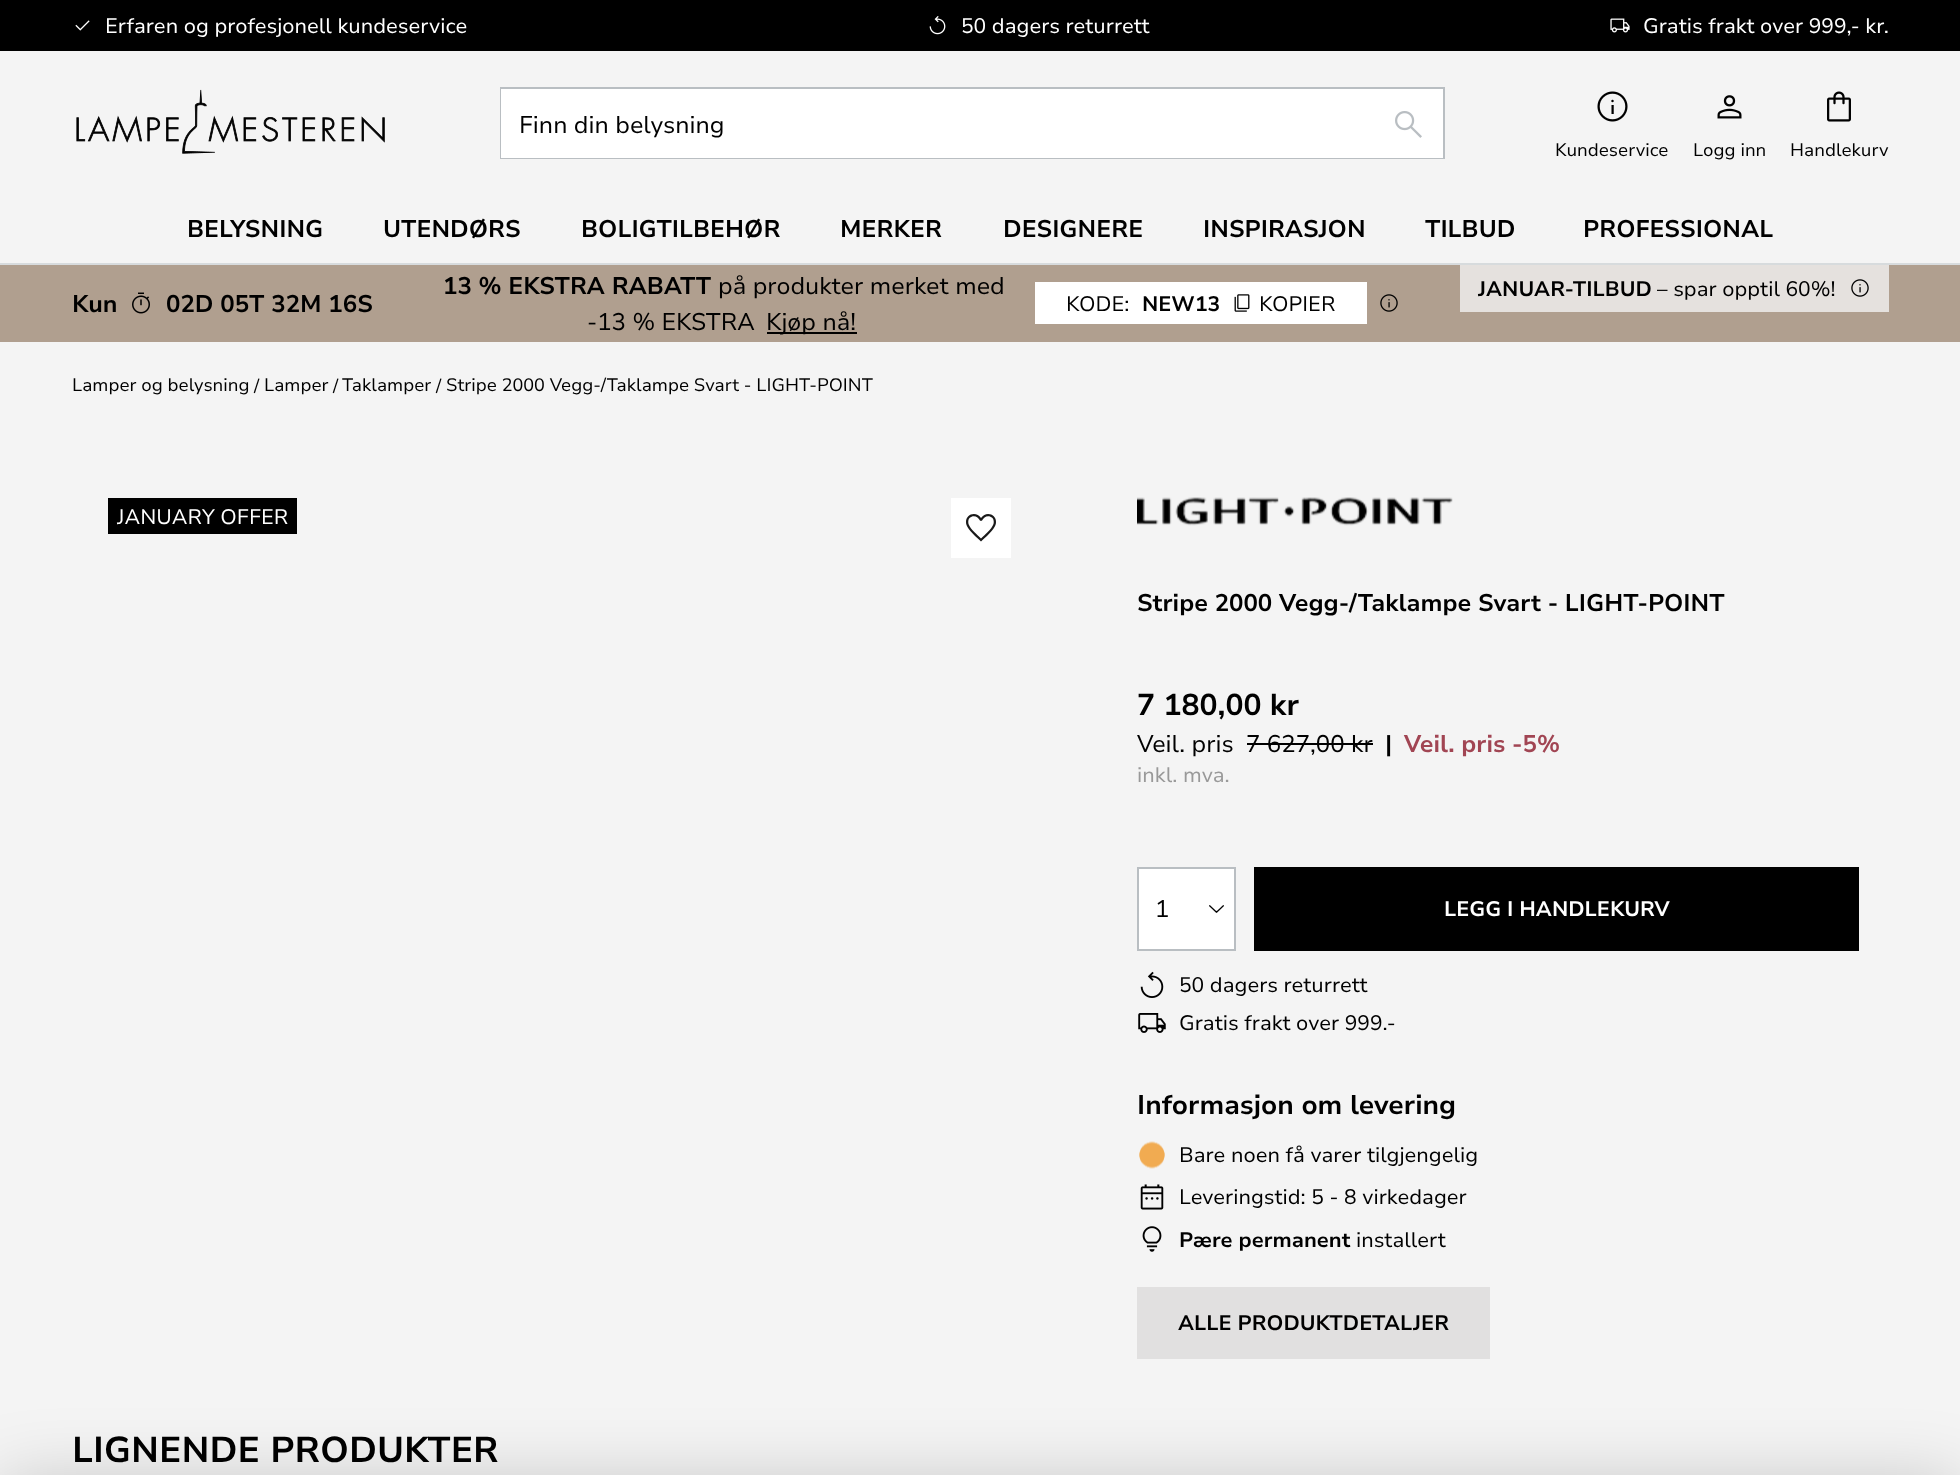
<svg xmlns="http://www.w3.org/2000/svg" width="1960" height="1475">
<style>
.a{font:21px Nunito Sans;fill:#fff}
.b{font:24px Nunito Sans;fill:#000}
.c{font:18px Nunito Sans;fill:#000}
.d{font:bold 24px Nunito Sans;fill:#000}
.e{font:21px Nunito Sans;fill:#000}
.f{font:bold 21px Nunito Sans;fill:#000}
.g{font:bold 30px Nunito Sans;fill:#000}
.h{font:bold 24px Nunito Sans;fill:#a14553}
.i{font:21px Nunito Sans;fill:#999}
.j{font:bold 21px Nunito Sans;fill:#fff}
.k{font:bold 27px Nunito Sans;fill:#000}
.l{font:bold 36px Nunito Sans;fill:#000}
</style>
<rect width="100%" height="100%" fill="#f4f4f4"/>
<path fill="#000" d="M0 0h1960v51H0z"/>
<image href="1.png" x="75" y="20" width="15" height="11"/>
<image href="2.png" x="929" y="16" width="17" height="19"/>
<image href="3.png" x="1610" y="18" width="20" height="15"/>
<image href="4.png" x="76" y="89" width="309" height="65"/>
<path fill="none" stroke="#b9bec2" stroke-width="2" d="M501 88h943v70H501z"/>
<path fill="#fff" d="M501 89h942v69H501z"/>
<image href="5.png" x="1395" y="111" width="27" height="27"/>
<image href="6.png" x="1597" y="91" width="31" height="31"/>
<image href="7.png" x="1717" y="95" width="25" height="24"/>
<image href="8.png" x="1827" y="91" width="24" height="31"/>
<path fill="#d7dbdd" d="M0 263h1960v2H0z"/>
<path fill="#b09f8f" d="M0 265h1960v77H0z"/>
<path fill="#000" d="M767 332h90v2H767z"/>
<path fill="#fff" d="M1035 282h332v42H1035z"/>
<image href="9.png" x="1234" y="294" width="16" height="18"/>
<image href="10.png" x="1380" y="294" width="18" height="18"/>
<path fill="#e5e1de" d="M1460 265h429v47H1460z"/>
<image href="11.png" x="1851" y="279" width="18" height="18"/>
<image href="12.png" x="132" y="292" width="18" height="22"/>
<path fill="#000" d="M108 498h189v36H108z"/>
<path fill="#fff" d="M951 498h60v60H951z"/>
<image href="13.png" x="966" y="514" width="30" height="28"/>
<image href="14.png" x="1137" y="497" width="316" height="29"/>
<path fill="#000" d="M1247 743h126v2H1247z"/>
<path fill="#fff" stroke="#b9bec2" stroke-width="2" d="M1138 868h97v82H1138z"/>
<image href="15.png" x="1209" y="905" width="15" height="8"/>
<path fill="#000" d="M1254 867h605v84H1254z"/>
<path fill="#00000033" filter="blur(36px)" d="M0 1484h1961v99H0z"/>
<image href="16.png" x="1140" y="971" width="24" height="27"/>
<image href="17.png" x="1138" y="1013" width="28" height="20"/>
<image href="18.png" x="1139" y="1141" width="26" height="28"/>
<image href="19.png" x="1140" y="1184" width="24" height="26"/>
<image href="20.png" x="1142" y="1226" width="20" height="26"/>
<path fill="#e1e0e0" d="M1137 1287h353v72H1137z"/>
<text class="a" x="105" y="33">Erfaren og profesjonell kundeservice</text>
<text class="a" x="961" y="33">50 dagers returrett</text>
<text class="a" x="1643" y="33">Gratis frakt over 999,- kr.</text>
<text class="b" x="519" y="133">Finn din belysning</text>
<text class="c" x="1555" y="156">Kundeservice</text>
<text class="c" x="1693" y="156">Logg inn</text>
<text class="c" x="1790" y="156">Handlekurv</text>
<text class="d" x="187" y="237">BELYSNING</text>
<text class="d" x="383" y="237">UTENDØRS</text>
<text class="d" x="581" y="237">BOLIGTILBEHØR</text>
<text class="d" x="840" y="237">MERKER</text>
<text class="d" x="1003" y="237">DESIGNERE</text>
<text class="d" x="1203" y="237">INSPIRASJON</text>
<text class="d" x="1425" y="237">TILBUD</text>
<text class="d" x="1583" y="237">PROFESSIONAL</text>
<text class="d" x="443" y="294">13 % EKSTRA RABATT</text>
<text class="b" x="718" y="294">på produkter merket med</text>
<text class="b" x="587" y="330">-13 % EKSTRA</text>
<text class="b" x="766" y="330">Kjøp nå!</text>
<text class="e" x="1066" y="311">KODE:</text>
<text class="f" x="1142" y="311">NEW13</text>
<text class="e" x="1259" y="311">KOPIER</text>
<text class="f" x="1478" y="296">JANUAR-TILBUD</text>
<text class="e" x="1657" y="296">– spar opptil 60%!</text>
<text class="d" x="72" y="312">Kun</text>
<text class="d" x="166" y="312">02D 05T 32M 16S</text>
<text class="c" x="72" y="391">Lamper og belysning</text>
<text class="c" x="254" y="392">/</text>
<text class="c" x="264" y="391">Lamper</text>
<text class="c" x="333" y="392">/</text>
<text class="c" x="342" y="391">Taklamper</text>
<text class="c" x="436" y="392">/</text>
<text class="c" x="446" y="391">Stripe 2000 Vegg-/Taklampe Svart - LIGHT-POINT</text>
<text class="a" x="117" y="524">JANUARY OFFER</text>
<text class="d" x="1137" y="611">Stripe 2000 Vegg-/Taklampe Svart - LIGHT-POINT</text>
<text class="g" x="1137" y="715">7 180,00 kr</text>
<text class="b" x="1137" y="752">Veil. pris</text>
<text class="b" x="1246" y="752">7 627,00 kr</text>
<text class="d" x="1385" y="752">|</text>
<text class="h" x="1404" y="752">Veil. pris -5%</text>
<text class="i" x="1137" y="782">inkl. mva.</text>
<text class="b" x="1155" y="917">1</text>
<text class="j" x="1444" y="916">LEGG I HANDLEKURV</text>
<text class="e" x="1179" y="992">50 dagers returrett</text>
<text class="e" x="1179" y="1030">Gratis frakt over 999.-</text>
<text class="k" x="1137" y="1114">Informasjon om levering</text>
<text class="e" x="1179" y="1162">Bare noen få varer tilgjengelig</text>
<text class="e" x="1179" y="1204">Leveringstid: 5 - 8 virkedager</text>
<text class="f" x="1179" y="1247">Pære permanent</text>
<text class="e" x="1356" y="1247">installert</text>
<text class="f" x="1178" y="1330">ALLE PRODUKTDETALJER</text>
<text class="l" x="72" y="1462">LIGNENDE PRODUKTER</text>
</svg>
